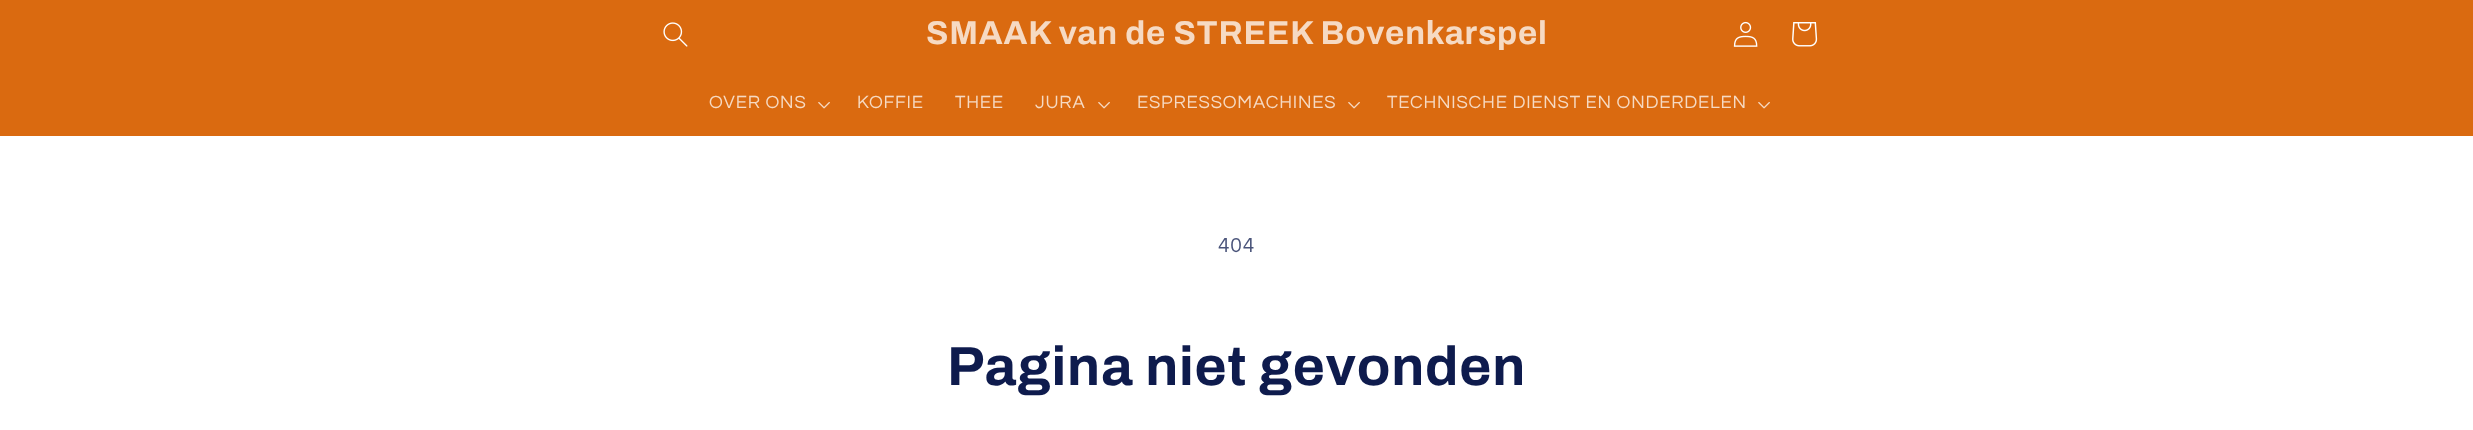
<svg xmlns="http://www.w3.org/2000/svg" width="2473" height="430">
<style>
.a{font:bold 33px Archivo;letter-spacing:0.8px;fill:#f6dac3}
.b{font:18.4px Questrial;letter-spacing:0.8px;fill:#f6dac3}
.c{font:21px Questrial;letter-spacing:0.8px;fill:#4a547a}
.d{font:bold 55px Archivo;letter-spacing:0.8px;fill:#0e1b4d}
</style>
<rect width="100%" height="100%" fill="#fff"/>
<path fill="#da6a10" d="M0 0h2473v136H0z"/>
<image href="1.png" x="663" y="22" width="25" height="25"/>
<image href="2.png" x="1733" y="21" width="25" height="26"/>
<image href="3.png" x="1792" y="22" width="26" height="25"/>
<image href="4.png" x="818" y="102" width="12" height="7"/>
<image href="4.png" x="1098" y="102" width="12" height="7"/>
<image href="4.png" x="1348" y="102" width="12" height="7"/>
<image href="4.png" x="1758" y="102" width="12" height="7"/>
<text class="a" x="926" y="44">SMAAK van de STREEK Bovenkarspel</text>
<text class="b" x="709" y="108">OVER ONS</text>
<text class="b" x="857" y="108">KOFFIE</text>
<text class="b" x="955" y="108">THEE</text>
<text class="b" x="1035" y="108">JURA</text>
<text class="b" x="1137" y="108">ESPRESSOMACHINES</text>
<text class="b" x="1387" y="108">TECHNISCHE DIENST EN ONDERDELEN</text>
<text class="c" x="1218" y="252">404</text>
<text class="d" x="947" y="385">Pagina niet gevonden</text>
</svg>
